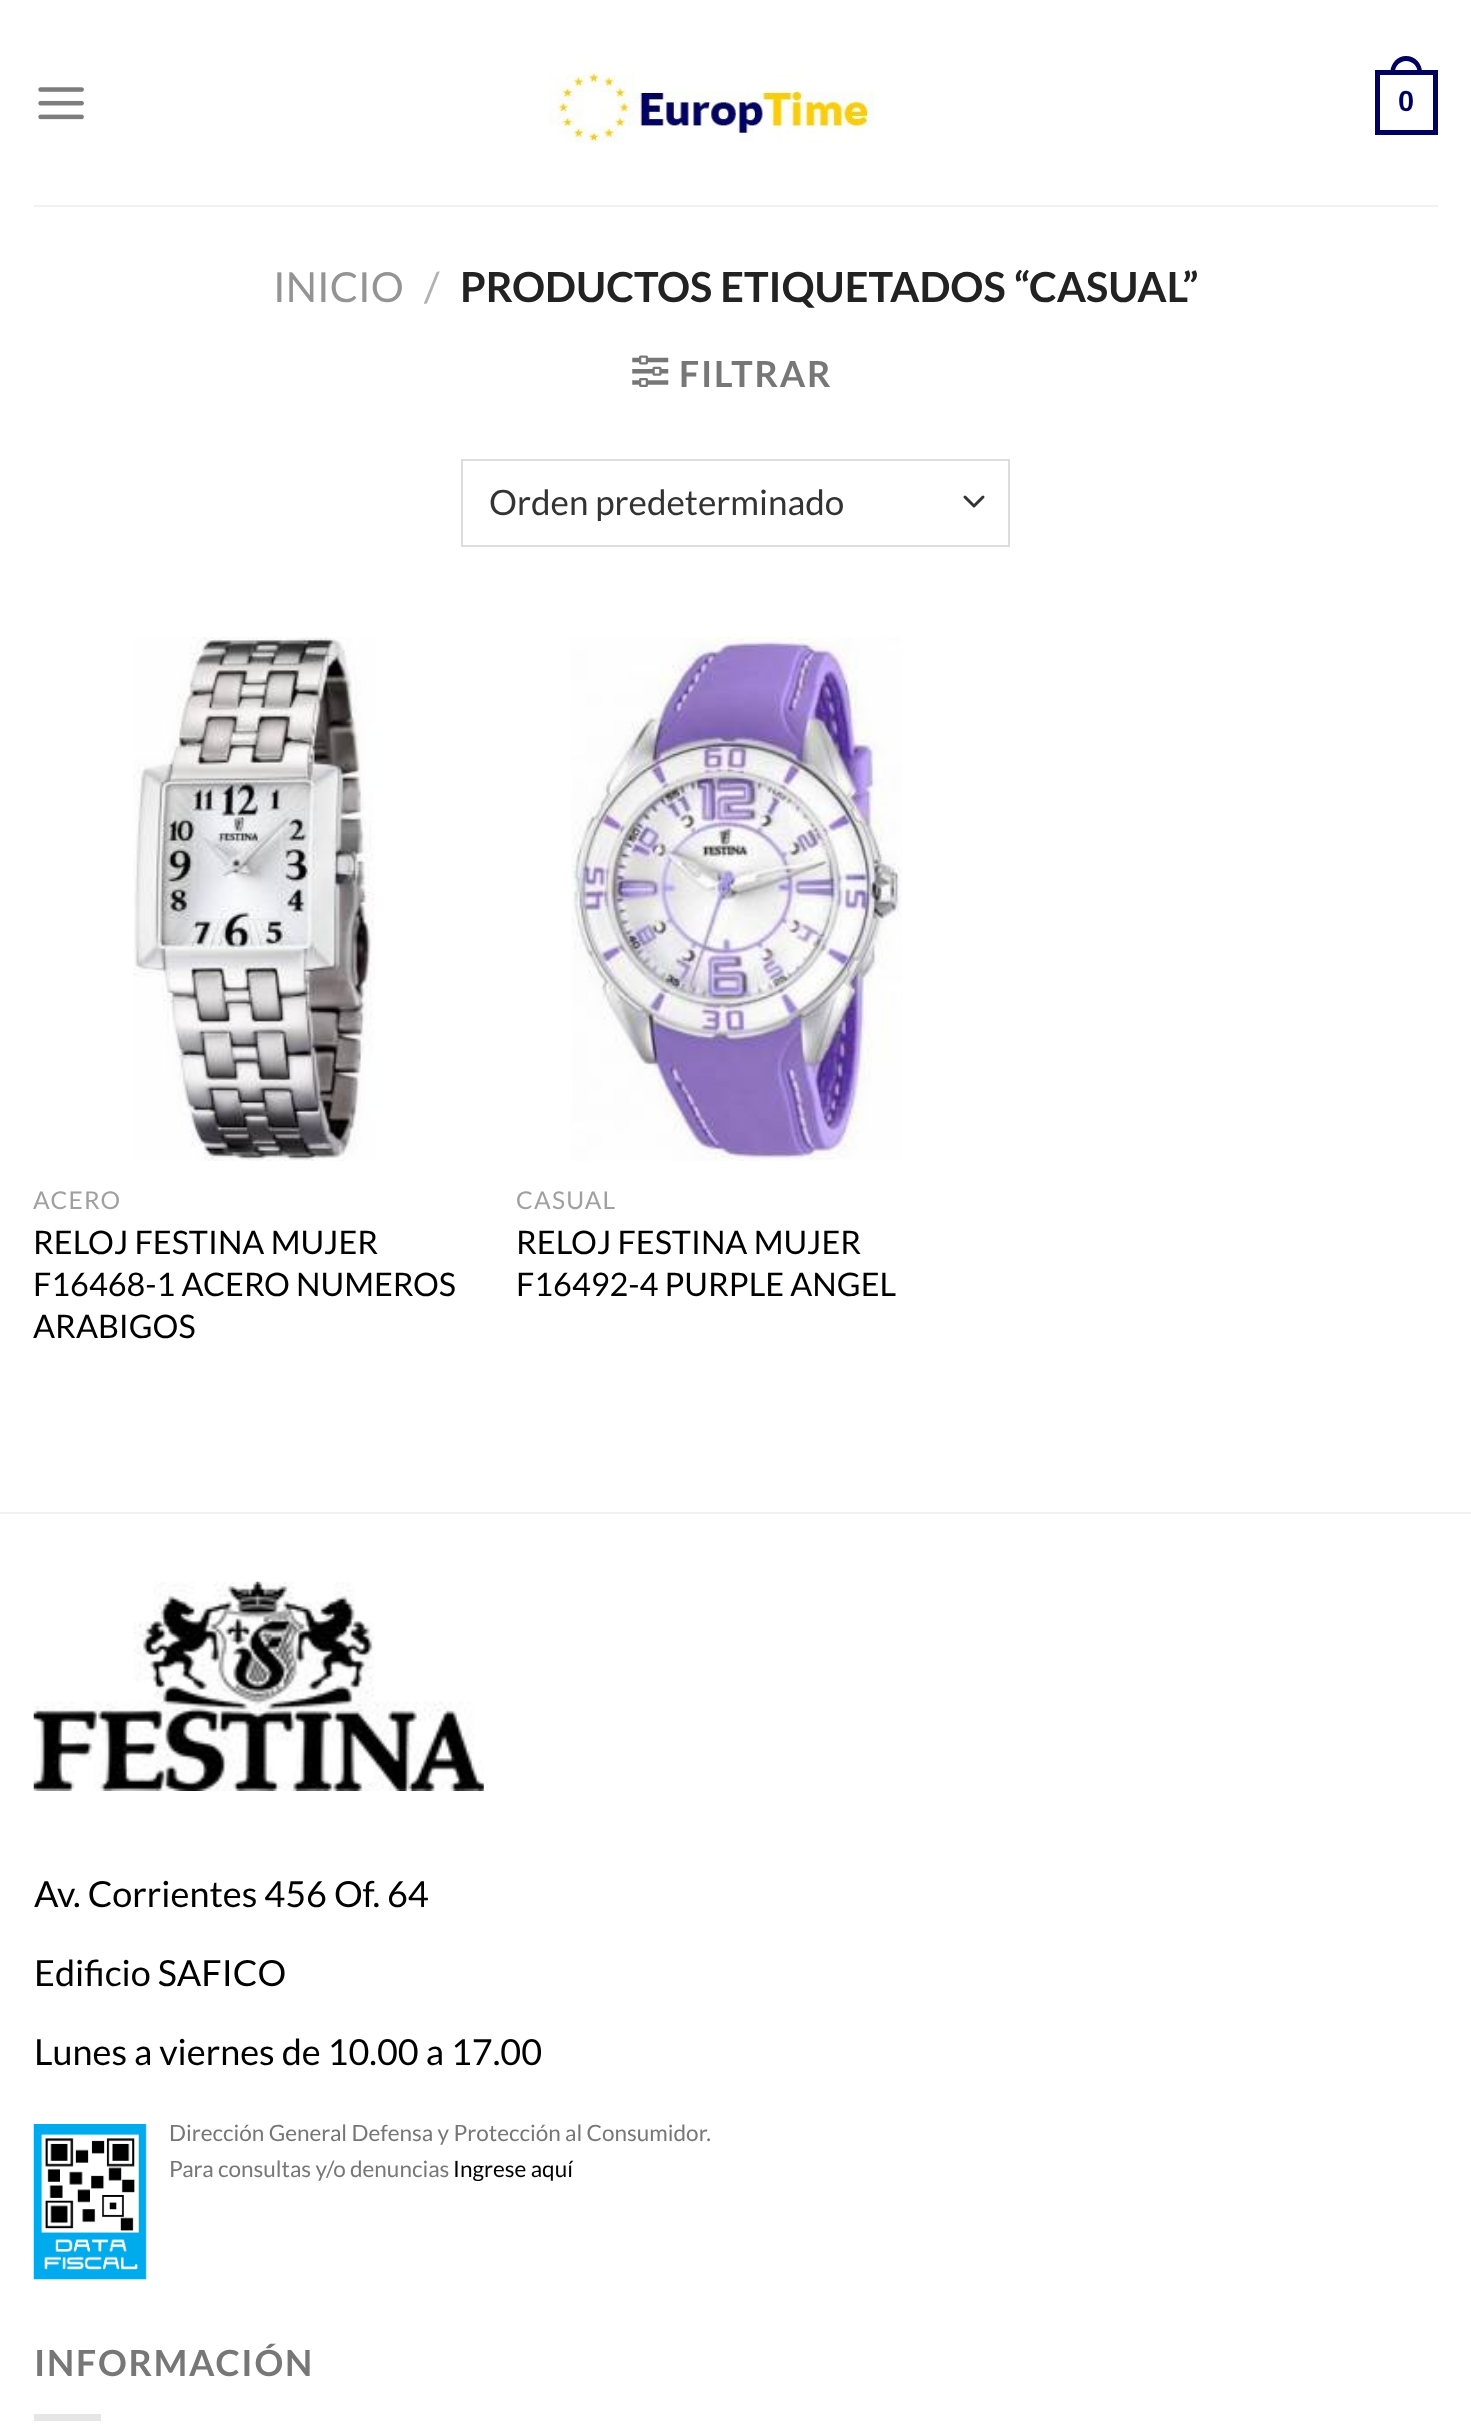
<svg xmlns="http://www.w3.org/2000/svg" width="1471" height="2432">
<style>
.a{font:bold 29px Liberation Sans;fill:#00005e}
.b{font:41.4px Lato;fill:#949494}
.c{font:41.4px Lato;fill:#b2b2b2}
.d{font:bold 41.4px Lato;fill:#222}
.e{font:bold 36px Lato;letter-spacing:1.75px;fill:#777}
.f{font:35px Lato;fill:#333}
.g{font:24.5px Lato;letter-spacing:1.25px;fill:#a0a0a0}
.h{font:32.4px Lato;fill:#000}
.i{font:36px Lato;fill:#000}
.j{font:22.5px Lato;fill:#777}
.k{font:22.5px Lato;fill:#000}
</style>
<rect width="100%" height="100%" fill="#fff"/>
<image href="1.png" x="38" y="87" width="46" height="33"/>
<image href="2.png" x="549" y="59" width="325" height="84"/>
<path fill="none" stroke="#00005e" stroke-width="5" d="M1377.5 72.5h58v60H1377.5z"/>
<path fill="#00005e" fill-rule="evenodd" d="M1406 56c9 0 16 7.5 16 16v2h-31.5v-2c0-8.5 7-16 15.5-16zm0 5c6.5 0 11.5 5 11.5 11v2h-22.5v-2c0-6 5-11 11-11z"/>
<path fill="#f1f1f1" d="M34 205h1404v2H34z"/>
<image href="3.png" x="632" y="355" width="37" height="32"/>
<path fill="none" stroke="#333" stroke-width="3" stroke-linecap="round" stroke-linejoin="round" d="M965 497l9 9l9-9"/>
<path fill="none" stroke="#ddd" stroke-width="2" d="M462 460h547v86H462z"/>
<image href="4.png" x="133" y="637" width="242" height="524"/>
<image href="5.png" x="571" y="637" width="331" height="524"/>
<path fill="#f2f2f2" d="M0 1512h1471v2H0z"/>
<image href="6.png" x="33" y="1581" width="451" height="210"/>
<image href="7.png" x="33" y="2124" width="114" height="156"/>
<path fill="#e6e6e6" d="M34 2414h67v7H34z"/>
<text class="a" x="1398" y="111">0</text>
<text class="b" x="273" y="302">INICIO</text>
<text class="c" x="424" y="302">/</text>
<text class="d" x="460" y="302">PRODUCTOS ETIQUETADOS “CASUAL”</text>
<text class="e" x="679" y="387">FILTRAR</text>
<text class="f" x="489" y="515">Orden predeterminado</text>
<text class="g" x="33" y="1209">ACERO</text>
<text class="h" x="33" y="1254">RELOJ FESTINA MUJER</text>
<text class="h" x="33" y="1296">F16468-1 ACERO NUMEROS</text>
<text class="h" x="33" y="1338">ARABIGOS</text>
<text class="g" x="516" y="1209">CASUAL</text>
<text class="h" x="516" y="1254">RELOJ FESTINA MUJER</text>
<text class="h" x="516" y="1296">F16492-4 PURPLE ANGEL</text>
<text class="i" x="34" y="1907">Av. Corrientes 456 Of. 64</text>
<text class="i" x="34" y="1986">Edificio SAFICO</text>
<text class="i" x="34" y="2065">Lunes a viernes de 10.00 a 17.00</text>
<text class="j" x="169" y="2141">Dirección General Defensa y Protección al Consumidor.</text>
<text class="j" x="169" y="2177">Para consultas y/o denuncias</text>
<text class="k" x="453" y="2177">Ingrese aquí</text>
<text class="e" x="34" y="2376">INFORMACIÓN</text>
</svg>
